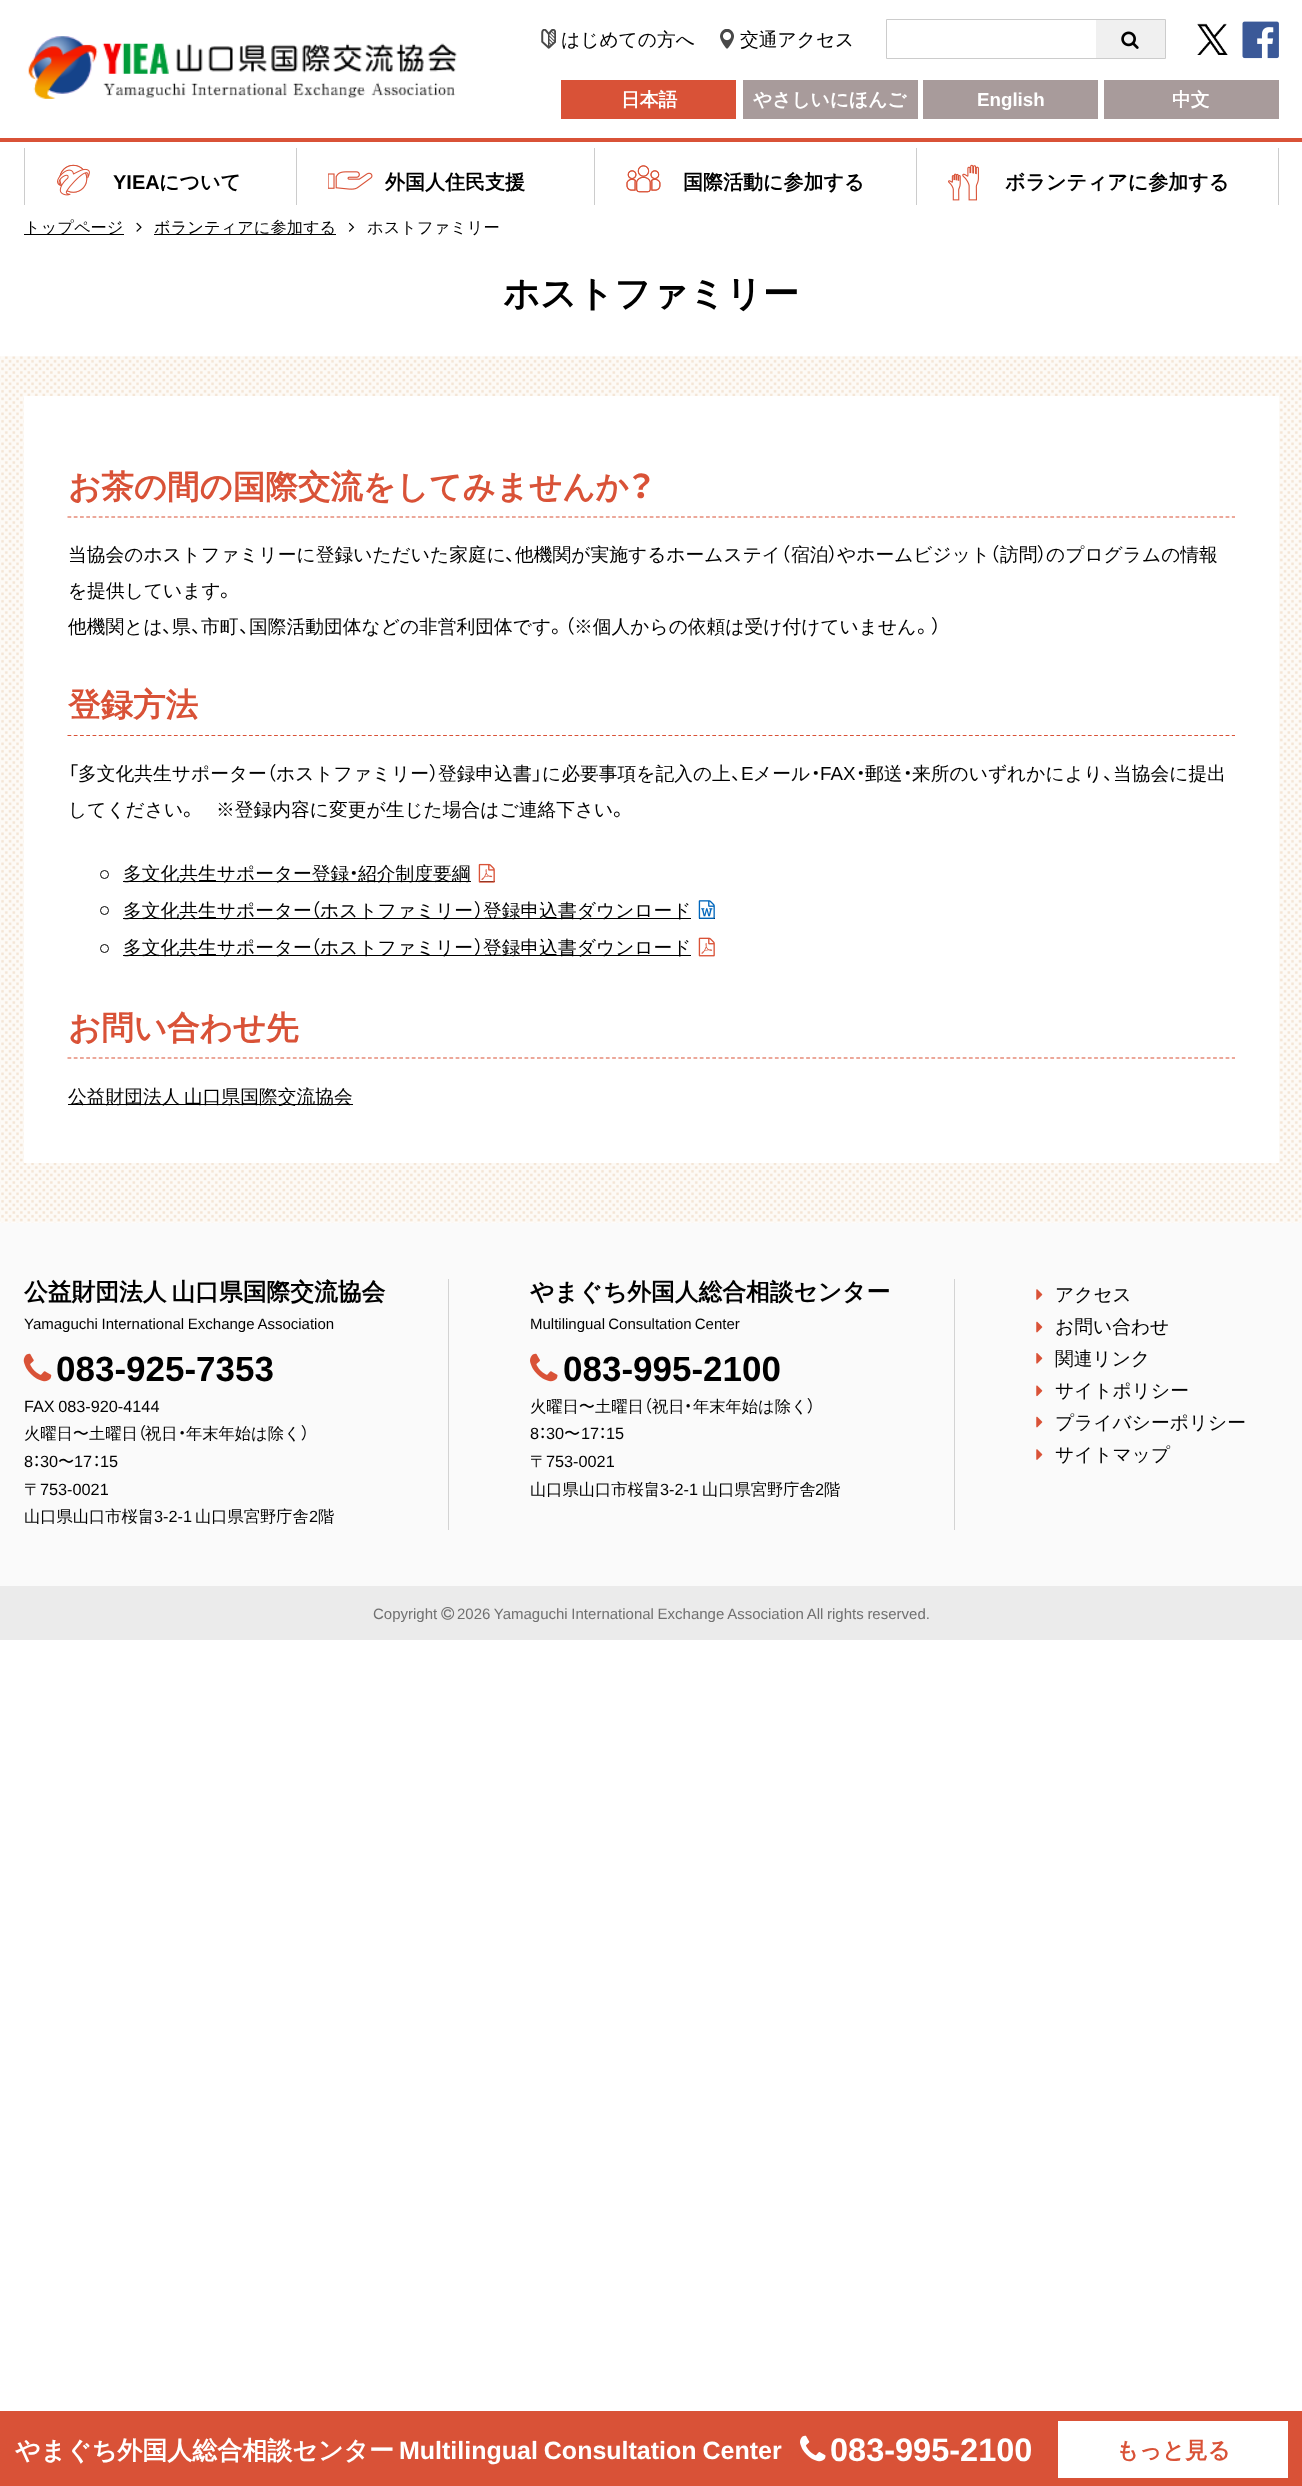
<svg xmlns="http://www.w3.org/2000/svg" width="1302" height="2486">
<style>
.a{font:500 18.75px WenQuanYi Zen Hei;fill:#000}
.b{font:bold 18.75px WenQuanYi Zen Hei;fill:#fff}
.c{font:bold 18.75px Liberation Sans;fill:#fff}
.d{font:bold 20px Liberation Sans;fill:#000}
.e{font:bold 20px WenQuanYi Zen Hei;fill:#000}
.f{font:500 16.25px WenQuanYi Zen Hei;fill:#000}
.g{font:bold 36.25px WenQuanYi Zen Hei;fill:#000}
.h{font:bold 32.5px WenQuanYi Zen Hei;fill:#d95237}
.i{font:bold 32.5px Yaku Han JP;fill:#d95237}
.j{font:18.75px Yaku Han JP;fill:#000}
.k{font:18.75px Liberation Sans;fill:#000}
.l{font:bold 23.75px WenQuanYi Zen Hei;fill:#000}
.m{font:15px Liberation Sans;fill:#000}
.n{font:bold 35px Liberation Sans;fill:#000}
.o{font:16.25px Liberation Sans;fill:#000}
.p{font:16.25px Yaku Han JP;fill:#000}
.q{font:15px Liberation Sans;fill:#707070}
.r{font:bold 25px WenQuanYi Zen Hei;fill:#fff}
.s{font:bold 25px Liberation Sans;fill:#fff}
.t{font:bold 32.5px Liberation Sans;fill:#fff}
.u{font:bold 22.5px WenQuanYi Zen Hei;fill:#d95237}
</style>
<defs>
<clipPath id="clip1"><path d="M154 218h214v17H154z"/></clipPath>
</defs>
<rect width="100%" height="100%" fill="#fff"/>
<image href="1.png" x="28" y="36" width="429" height="63"/>
<image href="2.png" x="541" y="29" width="15" height="20"/>
<image href="3.png" x="720" y="29" width="14" height="20"/>
<path fill="none" stroke="#ccc" d="M886.5 19.5h279v39H886.5z"/>
<path fill="#f0f0f0" d="M1096 20h69v38H1096z"/>
<image href="4.png" x="1121" y="31" width="18" height="18"/>
<image href="5.png" x="1197" y="23" width="31" height="32"/>
<image href="6.png" x="1242" y="21" width="37" height="38"/>
<path fill="#d95237" d="M561 80h175v39H561z"/>
<path fill="#a89b9b" d="M743 80h175v39H743z"/>
<path fill="#a89b9b" d="M923 80h175v39H923z"/>
<path fill="#a89b9b" d="M1104 80h175v39H1104z"/>
<path fill="#d95237" d="M0 138h1302v4H0z"/>
<path fill="#ccc" d="M24 148h1v57H24z"/>
<image href="7.png" x="57" y="164" width="33" height="32"/>
<path fill="#ccc" d="M296 148h1v57H296z"/>
<image href="8.png" x="328" y="171" width="45" height="19"/>
<path fill="#ccc" d="M594 148h1v57H594z"/>
<image href="9.png" x="626" y="165" width="35" height="28"/>
<path fill="#ccc" d="M1278 148h1v57H1278z"/>
<path fill="#ccc" d="M916 148h1v57H916z"/>
<image href="10.png" x="948" y="164" width="31" height="37"/>
<path fill="#000" d="M24 234h100v1H24z"/>
<image href="11.png" x="136" y="222" width="6" height="10"/>
<path fill="#000" d="M154 234h182v1H154z"/>
<image href="12.png" x="348" y="222" width="7" height="10"/>
<image href="13.png" x="0" y="356" width="1302" height="867"/>
<path fill="#fff" d="M24 396h1255v767H24z"/>
<path fill="none" stroke="#d95237" stroke-width="1.2" stroke-dasharray="3.75 2.51" d="M67.5 517h1167.5"/>
<path fill="none" stroke="#d95237" stroke-width="1.2" stroke-dasharray="3.75 2.51" d="M67.5 735.5h1167.5"/>
<circle fill="none" stroke="#000" cx="104.5" cy="874.5" r="4"/>
<path fill="#000" d="M123 881h348v1H123z"/>
<path fill="#000" d="M479 881h16v1H479z"/>
<image href="14.png" x="478" y="863" width="17" height="20"/>
<circle fill="none" stroke="#000" cx="104.5" cy="910.5" r="4"/>
<path fill="#000" d="M123 918h568v1H123z"/>
<path fill="#000" d="M699 918h16v1H699z"/>
<image href="15.png" x="698" y="900" width="17" height="19"/>
<circle fill="none" stroke="#000" cx="104.5" cy="948.5" r="4"/>
<path fill="#000" d="M123 955h568v1H123z"/>
<image href="16.png" x="698" y="937" width="17" height="20"/>
<path fill="none" stroke="#d95237" stroke-width="1.2" stroke-dasharray="3.75 2.51" d="M67.5 1058h1167.5"/>
<path fill="#000" d="M68 1104h285v1H68z"/>
<path fill="#fafafa" d="M0 1223h1302v363H0z"/>
<path fill="#d3d3d3" d="M448 1279h1v251H448z"/>
<image href="17.png" x="23" y="1353" width="29" height="29"/>
<path fill="#d3d3d3" d="M954 1279h1v251H954z"/>
<image href="18.png" x="530" y="1353" width="28" height="29"/>
<image href="19.png" x="1036" y="1289" width="7" height="11"/>
<image href="20.png" x="1036" y="1321" width="7" height="12"/>
<image href="21.png" x="1036" y="1353" width="7" height="11"/>
<image href="22.png" x="1036" y="1385" width="7" height="12"/>
<image href="20.png" x="1036" y="1416" width="7" height="12"/>
<image href="19.png" x="1036" y="1449" width="7" height="11"/>
<path fill="#ebebeb" d="M0 1586h1302v54H0z"/>
<image href="23.png" x="441" y="1607" width="14" height="13"/>
<path fill="#d95237" d="M0 2411h1302v75H0z"/>
<image href="24.png" x="800" y="2435" width="26" height="27"/>
<path fill="#fff" d="M1058 2421h230v57H1058z"/>
<text class="a" x="561" y="46">はじめての方へ</text>
<text class="a" x="740" y="46">交通アクセス</text>
<text class="b" x="621" y="106">日本語</text>
<text class="b" x="753" y="106">やさしいにほんご</text>
<text class="c" x="977" y="106">English</text>
<text class="b" x="1172" y="106">中文</text>
<text class="d" x="113" y="189">YIEA</text>
<text class="e" x="159" y="189">について</text>
<text class="e" x="385" y="189">外国人住民支援</text>
<text class="e" x="683" y="189">国際活動に参加する</text>
<text class="e" x="1005" y="189">ボランティアに参加する</text>
<text class="f" x="24" y="233">トップページ</text>
<g clip-path="url(#clip1)">
<text class="f" x="154" y="233">ボランティアに参加する</text>
</g>
<text class="f" x="367" y="233">ホストファミリー</text>
<text class="g" x="503" y="306">ホストファミリー</text>
<text class="h" x="68" y="498">お茶の間の国際交流をしてみませんか</text>
<text class="i" x="628" y="498">？</text>
<text class="a" x="68" y="561">当協会のホストファミリーに登録いただいた家庭に</text>
<text class="j" x="505" y="561">、</text>
<text class="a" x="515" y="561">他機関が実施するホームステイ</text>
<text class="j" x="781" y="561">（</text>
<text class="a" x="791" y="561">宿泊</text>
<text class="j" x="828" y="561">）</text>
<text class="a" x="837" y="561">やホームビジット</text>
<text class="j" x="990" y="561">（</text>
<text class="a" x="1000" y="561">訪問</text>
<text class="j" x="1037" y="561">）</text>
<text class="a" x="1046" y="561">のプログラムの情報</text>
<text class="a" x="68" y="597">を提供しています</text>
<text class="j" x="220" y="597">。</text>
<text class="a" x="68" y="633">他機関とは</text>
<text class="j" x="162" y="633">、</text>
<text class="a" x="172" y="633">県</text>
<text class="j" x="191" y="633">、</text>
<text class="a" x="201" y="633">市町</text>
<text class="j" x="239" y="633">、</text>
<text class="a" x="249" y="633">国際活動団体などの非営利団体です</text>
<text class="j" x="551" y="633">。（</text>
<text class="a" x="574" y="633">※個人からの依頼は受け付けていません</text>
<text class="j" x="917" y="633">。）</text>
<text class="h" x="68" y="716">登録方法</text>
<text class="j" x="68" y="780">「</text>
<text class="a" x="78" y="780">多文化共生サポーター</text>
<text class="j" x="267" y="780">（</text>
<text class="a" x="276" y="780">ホストファミリー</text>
<text class="j" x="429" y="780">）</text>
<text class="a" x="438" y="780">登録申込書</text>
<text class="j" x="532" y="780">」</text>
<text class="a" x="542" y="780">に必要事項を記入の上</text>
<text class="k" x="741" y="780">E</text>
<text class="a" x="753" y="780">メール</text>
<text class="j" x="811" y="780">・</text>
<text class="k" x="820" y="780">FAX</text>
<text class="j" x="856" y="780">・</text>
<text class="a" x="865" y="780">郵送</text>
<text class="j" x="903" y="780">・</text>
<text class="a" x="912" y="780">来所のいずれかにより</text>
<text class="a" x="1113" y="780">当協会に提出</text>
<text class="j" x="731" y="780">、</text>
<text class="j" x="1103" y="780">、</text>
<text class="a" x="68" y="816">してください</text>
<text class="j" x="183" y="816">。</text>
<text class="a" x="216" y="816">※登録内容に変更が生じた場合はご連絡下さい</text>
<text class="j" x="613" y="816">。</text>
<text class="a" x="123" y="880">多文化共生サポーター登録</text>
<text class="j" x="349" y="880">・</text>
<text class="a" x="358" y="880">紹介制度要綱</text>
<text class="a" x="123" y="917">多文化共生サポーター</text>
<text class="j" x="311" y="917">（</text>
<text class="a" x="320" y="917">ホストファミリー</text>
<text class="j" x="474" y="917">）</text>
<text class="a" x="483" y="917">登録申込書ダウンロード</text>
<text class="a" x="123" y="954">多文化共生サポーター</text>
<text class="j" x="311" y="954">（</text>
<text class="a" x="320" y="954">ホストファミリー</text>
<text class="j" x="474" y="954">）</text>
<text class="a" x="483" y="954">登録申込書ダウンロード</text>
<text class="h" x="68" y="1039">お問い合わせ先</text>
<text class="a" x="68" y="1103" word-spacing="-2">公益財団法人 山口県国際交流協会</text>
<text class="l" x="24" y="1300" word-spacing="-2">公益財団法人 山口県国際交流協会</text>
<text class="m" x="24" y="1329" word-spacing="-0.5">Yamaguchi International Exchange Association</text>
<text class="n" x="56" y="1381">083-925-7353</text>
<text class="o" x="24" y="1412" word-spacing="-1">FAX 083-920-4144</text>
<text class="f" x="24" y="1439">火曜日〜土曜日</text>
<text class="p" x="138" y="1439">（</text>
<text class="f" x="145" y="1439">祝日</text>
<text class="p" x="178" y="1439">・</text>
<text class="f" x="186" y="1439">年末年始は除く</text>
<text class="p" x="301" y="1439">）</text>
<text class="o" x="24" y="1467">8</text>
<text class="p" x="33" y="1467">：</text>
<text class="o" x="40" y="1467">30</text>
<text class="f" x="58" y="1467">〜</text>
<text class="o" x="74" y="1467">17</text>
<text class="p" x="93" y="1467">：</text>
<text class="o" x="100" y="1467">15</text>
<text class="f" x="24" y="1495">〒</text>
<text class="o" x="40" y="1495">753-0021</text>
<text class="f" x="24" y="1522">山口県山口市桜畠</text>
<text class="o" x="154" y="1522">3-2-1</text>
<text class="f" x="195" y="1522">山口県宮野庁舎</text>
<text class="o" x="309" y="1522">2</text>
<text class="f" x="318" y="1522">階</text>
<text class="l" x="530" y="1300">やまぐち外国人総合相談センター</text>
<text class="m" x="530" y="1329" word-spacing="-1">Multilingual Consultation Center</text>
<text class="n" x="563" y="1381">083-995-2100</text>
<text class="f" x="530" y="1412">火曜日〜土曜日</text>
<text class="p" x="644" y="1412">（</text>
<text class="f" x="652" y="1412">祝日</text>
<text class="p" x="684" y="1412">・</text>
<text class="f" x="693" y="1412">年末年始は除く</text>
<text class="p" x="807" y="1412">）</text>
<text class="o" x="530" y="1439">8</text>
<text class="p" x="539" y="1439">：</text>
<text class="o" x="546" y="1439">30</text>
<text class="f" x="564" y="1439">〜</text>
<text class="o" x="581" y="1439">17</text>
<text class="p" x="599" y="1439">：</text>
<text class="o" x="606" y="1439">15</text>
<text class="f" x="530" y="1467">〒</text>
<text class="o" x="546" y="1467">753-0021</text>
<text class="f" x="530" y="1495">山口県山口市桜畠</text>
<text class="o" x="660" y="1495">3-2-1</text>
<text class="f" x="702" y="1495">山口県宮野庁舎</text>
<text class="o" x="815" y="1495">2</text>
<text class="f" x="824" y="1495">階</text>
<text class="a" x="1055" y="1301">アクセス</text>
<text class="a" x="1055" y="1333">お問い合わせ</text>
<text class="a" x="1055" y="1365">関連リンク</text>
<text class="a" x="1055" y="1397">サイトポリシー</text>
<text class="a" x="1055" y="1429">プライバシーポリシー</text>
<text class="a" x="1055" y="1461">サイトマップ</text>
<text class="q" x="373" y="1619">Copyright</text>
<text class="q" x="457" y="1619" word-spacing="-0.5">2026 Yamaguchi International Exchange Association All rights reserved.</text>
<text class="r" x="15" y="2459">やまぐち外国人総合相談センター</text>
<text class="s" x="399" y="2459" word-spacing="-1">Multilingual Consultation Center</text>
<text class="t" x="830" y="2461">083-995-2100</text>
<text class="u" x="1116" y="2458">もっと見る</text>
</svg>
